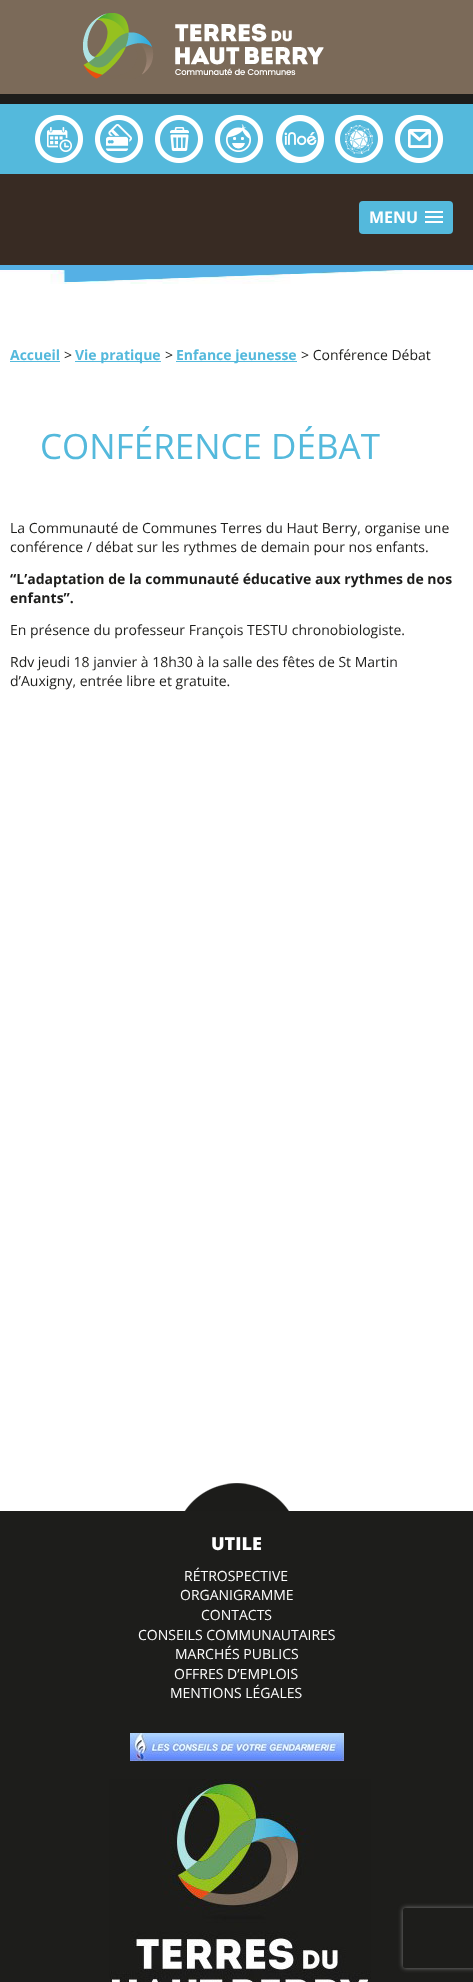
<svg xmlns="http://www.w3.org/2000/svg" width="473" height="1982">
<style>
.a{font:bold 16px Open Sans;fill:#fff}
.b{font:bold 14px Open Sans;fill:#54b9dc}
.c{font:14px Open Sans;fill:#1d1d1b}
.d{font:35px Open Sans;fill:#54b9dc}
.e{font:bold 14px Open Sans;fill:#1d1d1b}
.f{font:800 18px Open Sans;fill:#fff}
.g{font:14px Open Sans;fill:#fff}
</style>
<defs>
<clipPath id="clip1"><path d="M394 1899h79v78h-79zm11 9h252c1 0 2 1 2 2v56c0 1-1 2-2 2h-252c-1 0-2-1-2-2v-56c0-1 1-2 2-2z" clip-rule="evenodd"/></clipPath>
</defs>
<rect width="100%" height="100%" fill="#1d1d1b"/>
<path fill="#7b6a59" d="M0 0h473v94H0z"/>
<image href="1.png" x="83" y="13" width="241" height="66"/>
<path fill="#54b9dc" d="M0 104h473v70H0z"/>
<image href="2.png" x="35" y="115" width="48" height="48"/>
<image href="3.png" x="95" y="115" width="48" height="48"/>
<image href="4.png" x="155" y="115" width="48" height="48"/>
<image href="5.png" x="215" y="115" width="48" height="48"/>
<image href="6.png" x="276" y="115" width="48" height="48"/>
<image href="7.png" x="335" y="115" width="48" height="48"/>
<image href="8.png" x="395" y="115" width="48" height="48"/>
<path fill="#382b23" d="M0 174h473v91H0z"/>
<rect fill="#54b9dc" x="359" y="201" width="94" height="33" rx="4"/>
<path fill="#fff" d="M425 211h18v2H425z"/>
<path fill="#fff" d="M425 216h18v2H425z"/>
<path fill="#fff" d="M425 221h18v2H425z"/>
<image href="9.png" x="0" y="265" width="473" height="20"/>
<path fill="#fff" d="M0 285h473v1226H0z"/>
<image href="10.png" x="184" y="1483" width="105" height="28"/>
<path fill="#54b9dc" d="M10 361h50v1H10z"/>
<path fill="#54b9dc" d="M75 361h86v1H75z"/>
<path fill="#54b9dc" d="M176 361h121v1H176z"/>
<image href="11.png" x="130" y="1733" width="214" height="28"/>
<image href="12.png" x="109" y="1779" width="262" height="203"/>
<g clip-path="url(#clip1)">
<rect fill="#808080" filter="blur(2.5px)" x="403" y="1908" width="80" height="60" rx="2"/>
</g>
<text class="a" x="369" y="223">MENU</text>
<text class="b" x="10" y="360">Accueil</text>
<text class="c" x="64" y="360">&gt;</text>
<text class="b" x="75" y="360">Vie pratique</text>
<text class="c" x="165" y="360">&gt;</text>
<text class="b" x="176" y="360">Enfance jeunesse</text>
<text class="c" x="301" y="360">&gt; Conférence Débat</text>
<text class="d" x="40" y="459">CONFÉRENCE DÉBAT</text>
<text class="c" x="10" y="533">La Communauté de Communes Terres du Haut Berry, organise une</text>
<text class="c" x="10" y="552">conférence / débat sur les rythmes de demain pour nos enfants.</text>
<text class="e" x="10" y="584">“L’adaptation de la communauté éducative aux rythmes de nos</text>
<text class="e" x="10" y="603">enfants”.</text>
<text class="c" x="10" y="635">En présence du professeur François TESTU chronobiologiste.</text>
<text class="c" x="10" y="667">Rdv jeudi 18 janvier à 18h30 à la salle des fêtes de St Martin</text>
<text class="c" x="10" y="686">d’Auxigny, entrée libre et gratuite.</text>
<text class="f" x="211" y="1550">UTILE</text>
<text class="g" x="184" y="1581">RÉTROSPECTIVE</text>
<text class="g" x="180" y="1600">ORGANIGRAMME</text>
<text class="g" x="201" y="1620">CONTACTS</text>
<text class="g" x="138" y="1640">CONSEILS COMMUNAUTAIRES</text>
<text class="g" x="175" y="1659">MARCHÉS PUBLICS</text>
<text class="g" x="174" y="1679">OFFRES D’EMPLOIS</text>
<text class="g" x="170" y="1698">MENTIONS LÉGALES</text>
</svg>
